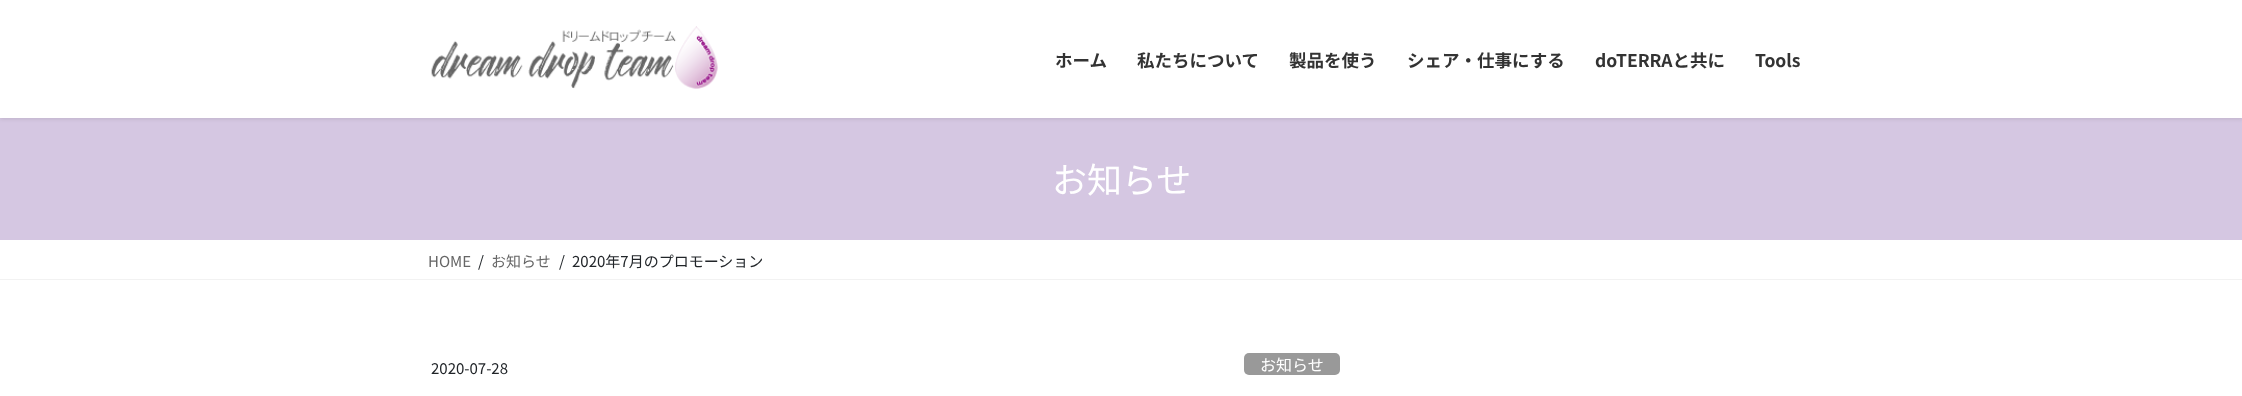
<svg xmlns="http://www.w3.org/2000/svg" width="2242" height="396">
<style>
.a{font:bold 17.5px Noto Sans JP;fill:#333}
.b{font:35px Noto Sans JP;fill:#fff}
.c{font:15px Noto Sans JP;fill:#666}
.d{font:15px Noto Sans JP;fill:#212529}
.e{font:16px Noto Sans JP;fill:#fff}
</style>
<rect width="100%" height="100%" fill="#fff"/>
<path fill="#d5c7e2" d="M0 118h2242v122H0z"/>
<path fill="#0000001a" filter="blur(2px)" d="M0 1h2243v118H0z"/>
<path fill="#fff" d="M0 0h2242v118H0z"/>
<image href="1.png" x="431" y="26" width="287" height="63"/>
<path fill="#f2f2f2" d="M0 279h2242v1H0z"/>
<rect fill="#999" x="1244" y="353" width="96" height="22" rx="5"/>
<text class="a" x="1055" y="67">ホーム</text>
<text class="a" x="1137" y="67">私たちについて</text>
<text class="a" x="1289" y="67">製品を使う</text>
<text class="a" x="1407" y="67">シェア・仕事にする</text>
<text class="a" x="1595" y="67">doTERRAと共に</text>
<text class="a" x="1755" y="67">Tools</text>
<text class="b" x="1052" y="193">お知らせ</text>
<text class="c" x="428" y="267">HOME</text>
<text class="d" x="478" y="267">/</text>
<text class="c" x="491" y="267">お知らせ</text>
<text class="d" x="559" y="267">/</text>
<text class="d" x="572" y="267">2020年7月のプロモーション</text>
<text class="d" x="431" y="374">2020-07-28</text>
<text class="e" x="1260" y="371">お知らせ</text>
</svg>
